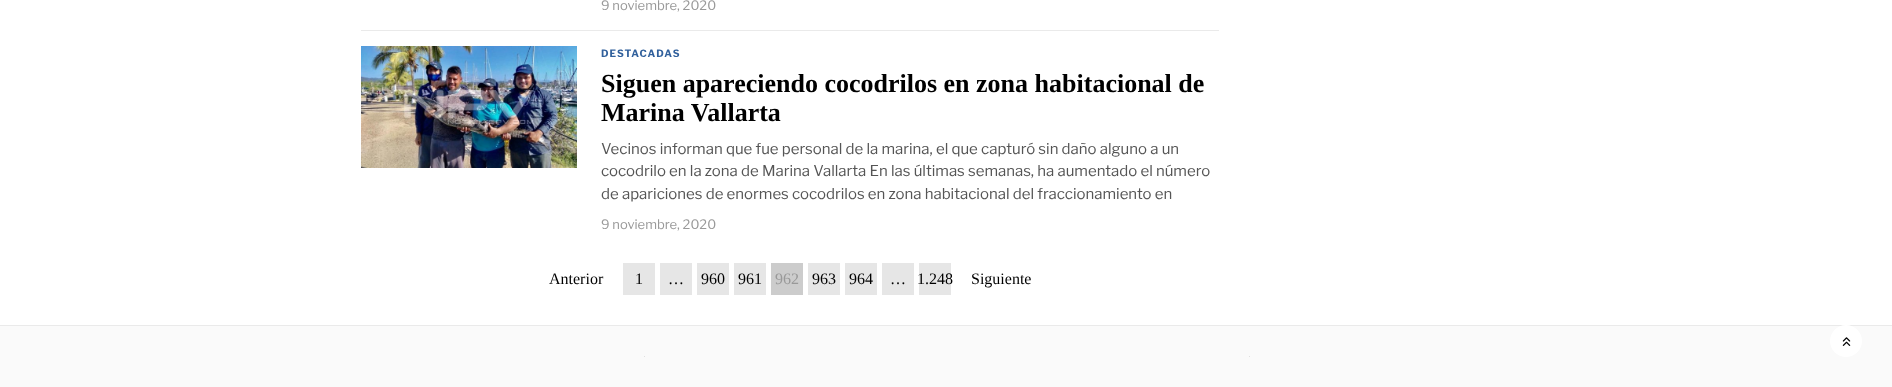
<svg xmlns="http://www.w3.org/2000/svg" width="1892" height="387">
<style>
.a{font:13px Libre Franklin;fill:#999}
.b{font:bold 10px Libre Franklin;letter-spacing:1px;fill:#31609c}
.c{font:bold 26px Tinos;fill:#000}
.d{font:15px Libre Franklin;fill:#555}
.e{font:16px Tinos;fill:#000}
.f{font:16px Tinos;fill:#999}
</style>
<rect width="100%" height="100%" fill="#fff"/>
<path fill="#eaeaea" d="M361 30h858v1H361z"/>
<image href="1.png" x="361" y="46" width="216" height="122"/>
<path fill="#e6e6e6" d="M623 263h32v32H623z"/>
<path fill="#e6e6e6" d="M660 263h32v32H660z"/>
<path fill="#e6e6e6" d="M697 263h32v32H697z"/>
<path fill="#e6e6e6" d="M734 263h32v32H734z"/>
<path fill="#ccc" d="M771 263h32v32H771z"/>
<path fill="#e6e6e6" d="M808 263h32v32H808z"/>
<path fill="#e6e6e6" d="M845 263h32v32H845z"/>
<path fill="#e6e6e6" d="M882 263h32v32H882z"/>
<path fill="#e6e6e6" d="M919 263h32v32H919z"/>
<path fill="#fafafa" d="M0 326h1892v61H0z"/>
<path fill="#eaeaea" d="M0 325h1892v1H0z"/>
<path fill="#e0e0e0" d="M644 356h1v1H644z"/>
<path fill="#e0e0e0" d="M1249 356h1v1H1249z"/>
<circle fill="#fff" cx="1846" cy="341" r="16"/>
<image href="2.png" x="1842" y="337" width="9" height="9"/>
<text class="a" x="601" y="10">9 noviembre, 2020</text>
<text class="b" x="601" y="57">DESTACADAS</text>
<text class="c" x="601" y="92">Siguen apareciendo cocodrilos en zona habitacional de</text>
<text class="c" x="601" y="121">Marina Vallarta</text>
<text class="d" x="601" y="154">Vecinos informan que fue personal de la marina, el que capturó sin daño alguno a un</text>
<text class="d" x="601" y="176">cocodrilo en la zona de Marina Vallarta En las últimas semanas, ha aumentado el número</text>
<text class="d" x="601" y="199">de apariciones de enormes cocodrilos en zona habitacional del fraccionamiento en</text>
<text class="a" x="601" y="229">9 noviembre, 2020</text>
<text class="e" x="549" y="284">Anterior</text>
<text class="e" x="635" y="284">1</text>
<text class="e" x="668" y="284">…</text>
<text class="e" x="701" y="284">960</text>
<text class="e" x="738" y="284">961</text>
<text class="f" x="775" y="284">962</text>
<text class="e" x="812" y="284">963</text>
<text class="e" x="849" y="284">964</text>
<text class="e" x="890" y="284">…</text>
<text class="e" x="917" y="284">1.248</text>
<text class="e" x="971" y="284">Siguiente</text>
</svg>
